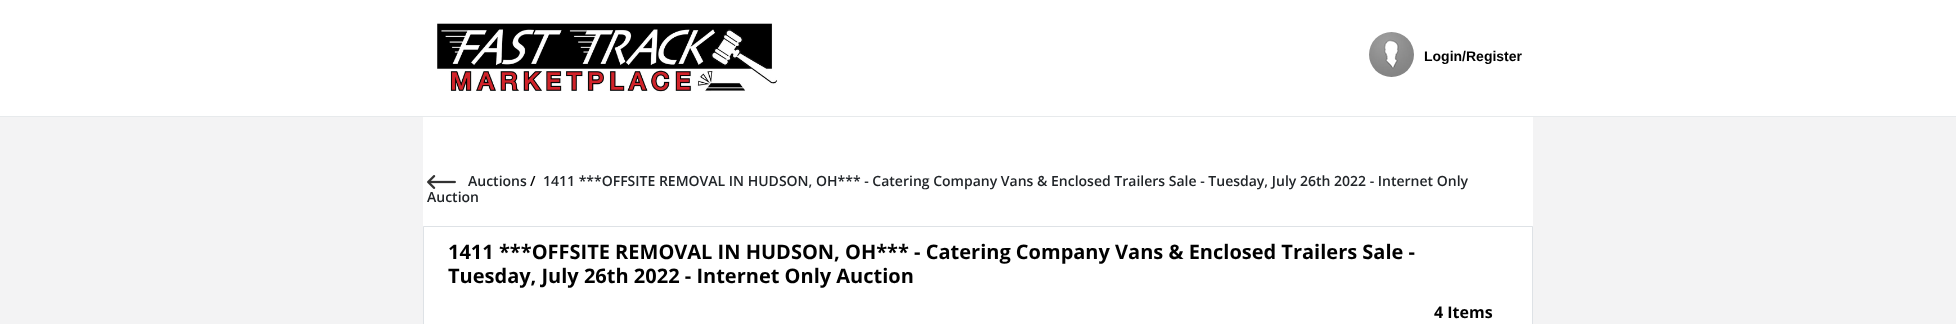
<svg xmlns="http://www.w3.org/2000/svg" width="1956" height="324">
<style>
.a{font:bold 14px Liberation Sans;fill:#000}
.b{font:600 14px Open Sans;fill:#212529}
.c{font:600 14px Open Sans;fill:#000}
.d{font:bold 20px Open Sans;fill:#000}
.e{font:bold 16px Open Sans;fill:#000}
</style>
<rect width="100%" height="100%" fill="#fff"/>
<path fill="#e7eaec" d="M0 116h1956v1H0z"/>
<image href="1.png" x="437" y="23" width="341" height="69"/>
<image href="2.png" x="1369" y="32" width="45" height="45"/>
<path fill="#f3f3f4" d="M0 117h1956v207H0z"/>
<path fill="#fff" d="M423 117h1110v109H423z"/>
<image href="3.png" x="427" y="175" width="29" height="14"/>
<path fill="#fff" stroke="#dee2e6" d="M423.5 226.5h1109v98H423.5z"/>
<text class="a" x="1424" y="61">Login/Register</text>
<text class="b" x="468" y="186">Auctions</text>
<text class="c" x="530" y="186">/</text>
<text class="b" x="543" y="186">1411 ***OFFSITE REMOVAL IN HUDSON, OH*** - Catering Company Vans &amp; Enclosed Trailers Sale - Tuesday, July 26th 2022 - Internet Only</text>
<text class="b" x="427" y="202">Auction</text>
<text class="d" x="448" y="259">1411 ***OFFSITE REMOVAL IN HUDSON, OH*** - Catering Company Vans &amp; Enclosed Trailers Sale -</text>
<text class="d" x="448" y="283">Tuesday, July 26th 2022 - Internet Only Auction</text>
<text class="e" x="1434" y="318">4 Items</text>
</svg>
